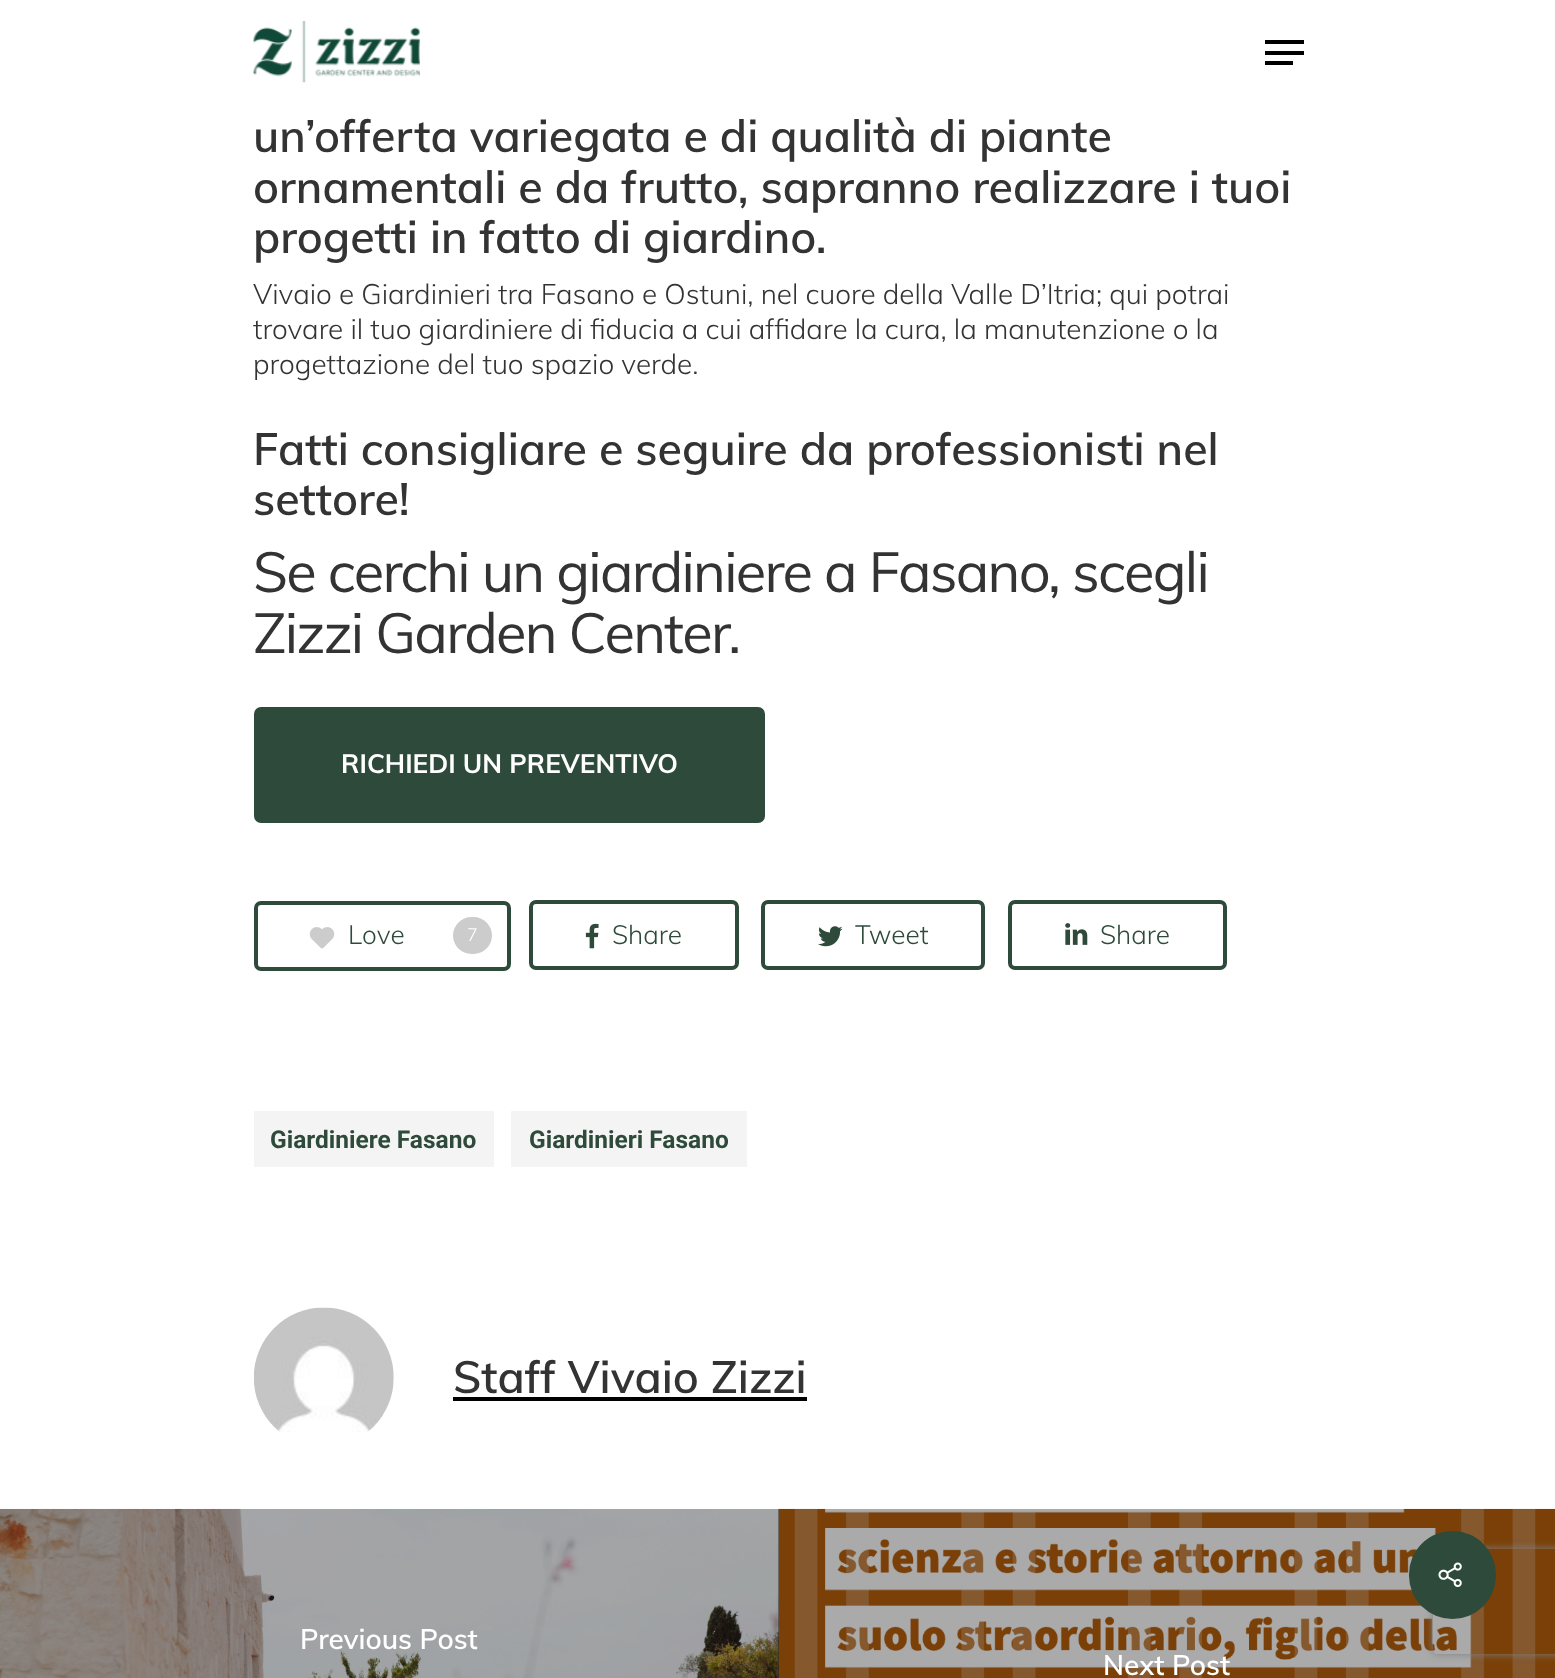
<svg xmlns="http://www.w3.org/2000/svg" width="1555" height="1678">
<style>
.a{font:600 44.8px Muli;fill:#333}
.b{font:300 28px Muli;fill:#333}
.c{font:56px Muli;letter-spacing:-1.75px;fill:#333}
.d{font:bold 26.25px Muli;fill:#fff}
.e{font:300 26.25px Muli;fill:#2e4a3a}
.f{font:300 18px Muli;fill:#fff}
.g{font:bold 24.5px Roboto;fill:#2e4a3a}
.h{font:600 28px Muli;fill:#fff}
</style>
<defs>
<clipPath id="clip1"><path d="M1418 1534h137v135h-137zm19 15h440c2 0 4 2 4 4v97c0 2-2 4-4 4h-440c-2 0-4-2-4-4v-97c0-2 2-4 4-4z" clip-rule="evenodd"/></clipPath>
</defs>
<rect width="100%" height="100%" fill="#fff"/>
<image href="1.png" x="253" y="21" width="167" height="62"/>
<path fill="#000" d="M1265 40h39v4H1265z"/>
<path fill="#000" d="M1265 61h28v4H1265z"/>
<path fill="#000" d="M1265 51h39v4H1265z"/>
<rect fill="#2e4a3a" x="254" y="707" width="511" height="116" rx="7"/>
<rect fill="none" stroke="#2e4a3a" stroke-width="4" x="256" y="903" width="253" height="66" rx="5"/>
<image href="2.png" x="309" y="927" width="26" height="22"/>
<rect fill="#ccc" x="453" y="917" width="39" height="37" rx="18.5"/>
<rect fill="none" stroke="#2e4a3a" stroke-width="4" x="531" y="902" width="206" height="66" rx="5"/>
<image href="3.png" x="585" y="923" width="14" height="26"/>
<rect fill="none" stroke="#2e4a3a" stroke-width="4" x="763" y="902" width="220" height="66" rx="5"/>
<image href="4.png" x="818" y="926" width="25" height="21"/>
<rect fill="none" stroke="#2e4a3a" stroke-width="4" x="1010" y="902" width="215" height="66" rx="5"/>
<image href="5.png" x="1065" y="923" width="23" height="22"/>
<path fill="#2e4a3a0f" d="M254 1111h240v56H254z"/>
<path fill="#2e4a3a0f" d="M511 1111h236v56H511z"/>
<image href="6.png" x="253" y="1307" width="141" height="125"/>
<path fill="#000" d="M453 1397h354v4H453z"/>
<path fill="#333" d="M778 1509h1v169H778z"/>
<image href="7.png" x="0" y="1508" width="779" height="170"/>
<image href="8.png" x="778" y="1508" width="777" height="170"/>
<path fill="#0d0d0d59" d="M0 1509h779v169H0z"/>
<g clip-path="url(#clip1)">
<rect fill="#808080" filter="blur(4.5px)" x="1433" y="1549" width="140" height="105" rx="4"/>
</g>
<rect fill="#2e4a3a" x="1409" y="1531" width="87" height="88" rx="43.5"/>
<image href="9.png" x="1438" y="1562" width="24" height="25"/>
<text class="a" x="253" y="152">un’offerta variegata e di qualità di piante</text>
<text class="a" x="253" y="203">ornamentali e da frutto, sapranno realizzare i tuoi</text>
<text class="a" x="253" y="253">progetti in fatto di giardino.</text>
<text class="b" x="253" y="304">Vivaio e Giardinieri tra Fasano e Ostuni, nel cuore della Valle D’Itria; qui potrai</text>
<text class="b" x="253" y="339">trovare il tuo giardiniere di fiducia a cui affidare la cura, la manutenzione o la</text>
<text class="b" x="253" y="374">progettazione del tuo spazio verde.</text>
<text class="a" x="253" y="465">Fatti consigliare e seguire da professionisti nel</text>
<text class="a" x="253" y="515">settore!</text>
<text class="c" x="253" y="592">Se cerchi un giardiniere a Fasano, scegli</text>
<text class="c" x="253" y="653">Zizzi Garden Center.</text>
<text class="d" x="341" y="773">RICHIEDI UN PREVENTIVO</text>
<text class="e" x="348" y="944">Love</text>
<text class="f" x="467" y="941">7</text>
<text class="e" x="612" y="944">Share</text>
<text class="e" x="855" y="944">Tweet</text>
<text class="e" x="1100" y="944">Share</text>
<text class="g" x="270" y="1148">Giardiniere Fasano</text>
<text class="g" x="529" y="1148">Giardinieri Fasano</text>
<text class="a" x="453" y="1393">Staff Vivaio Zizzi</text>
<text class="h" x="300" y="1649">Previous Post</text>
<text class="h" x="1103" y="1675">Next Post</text>
</svg>
